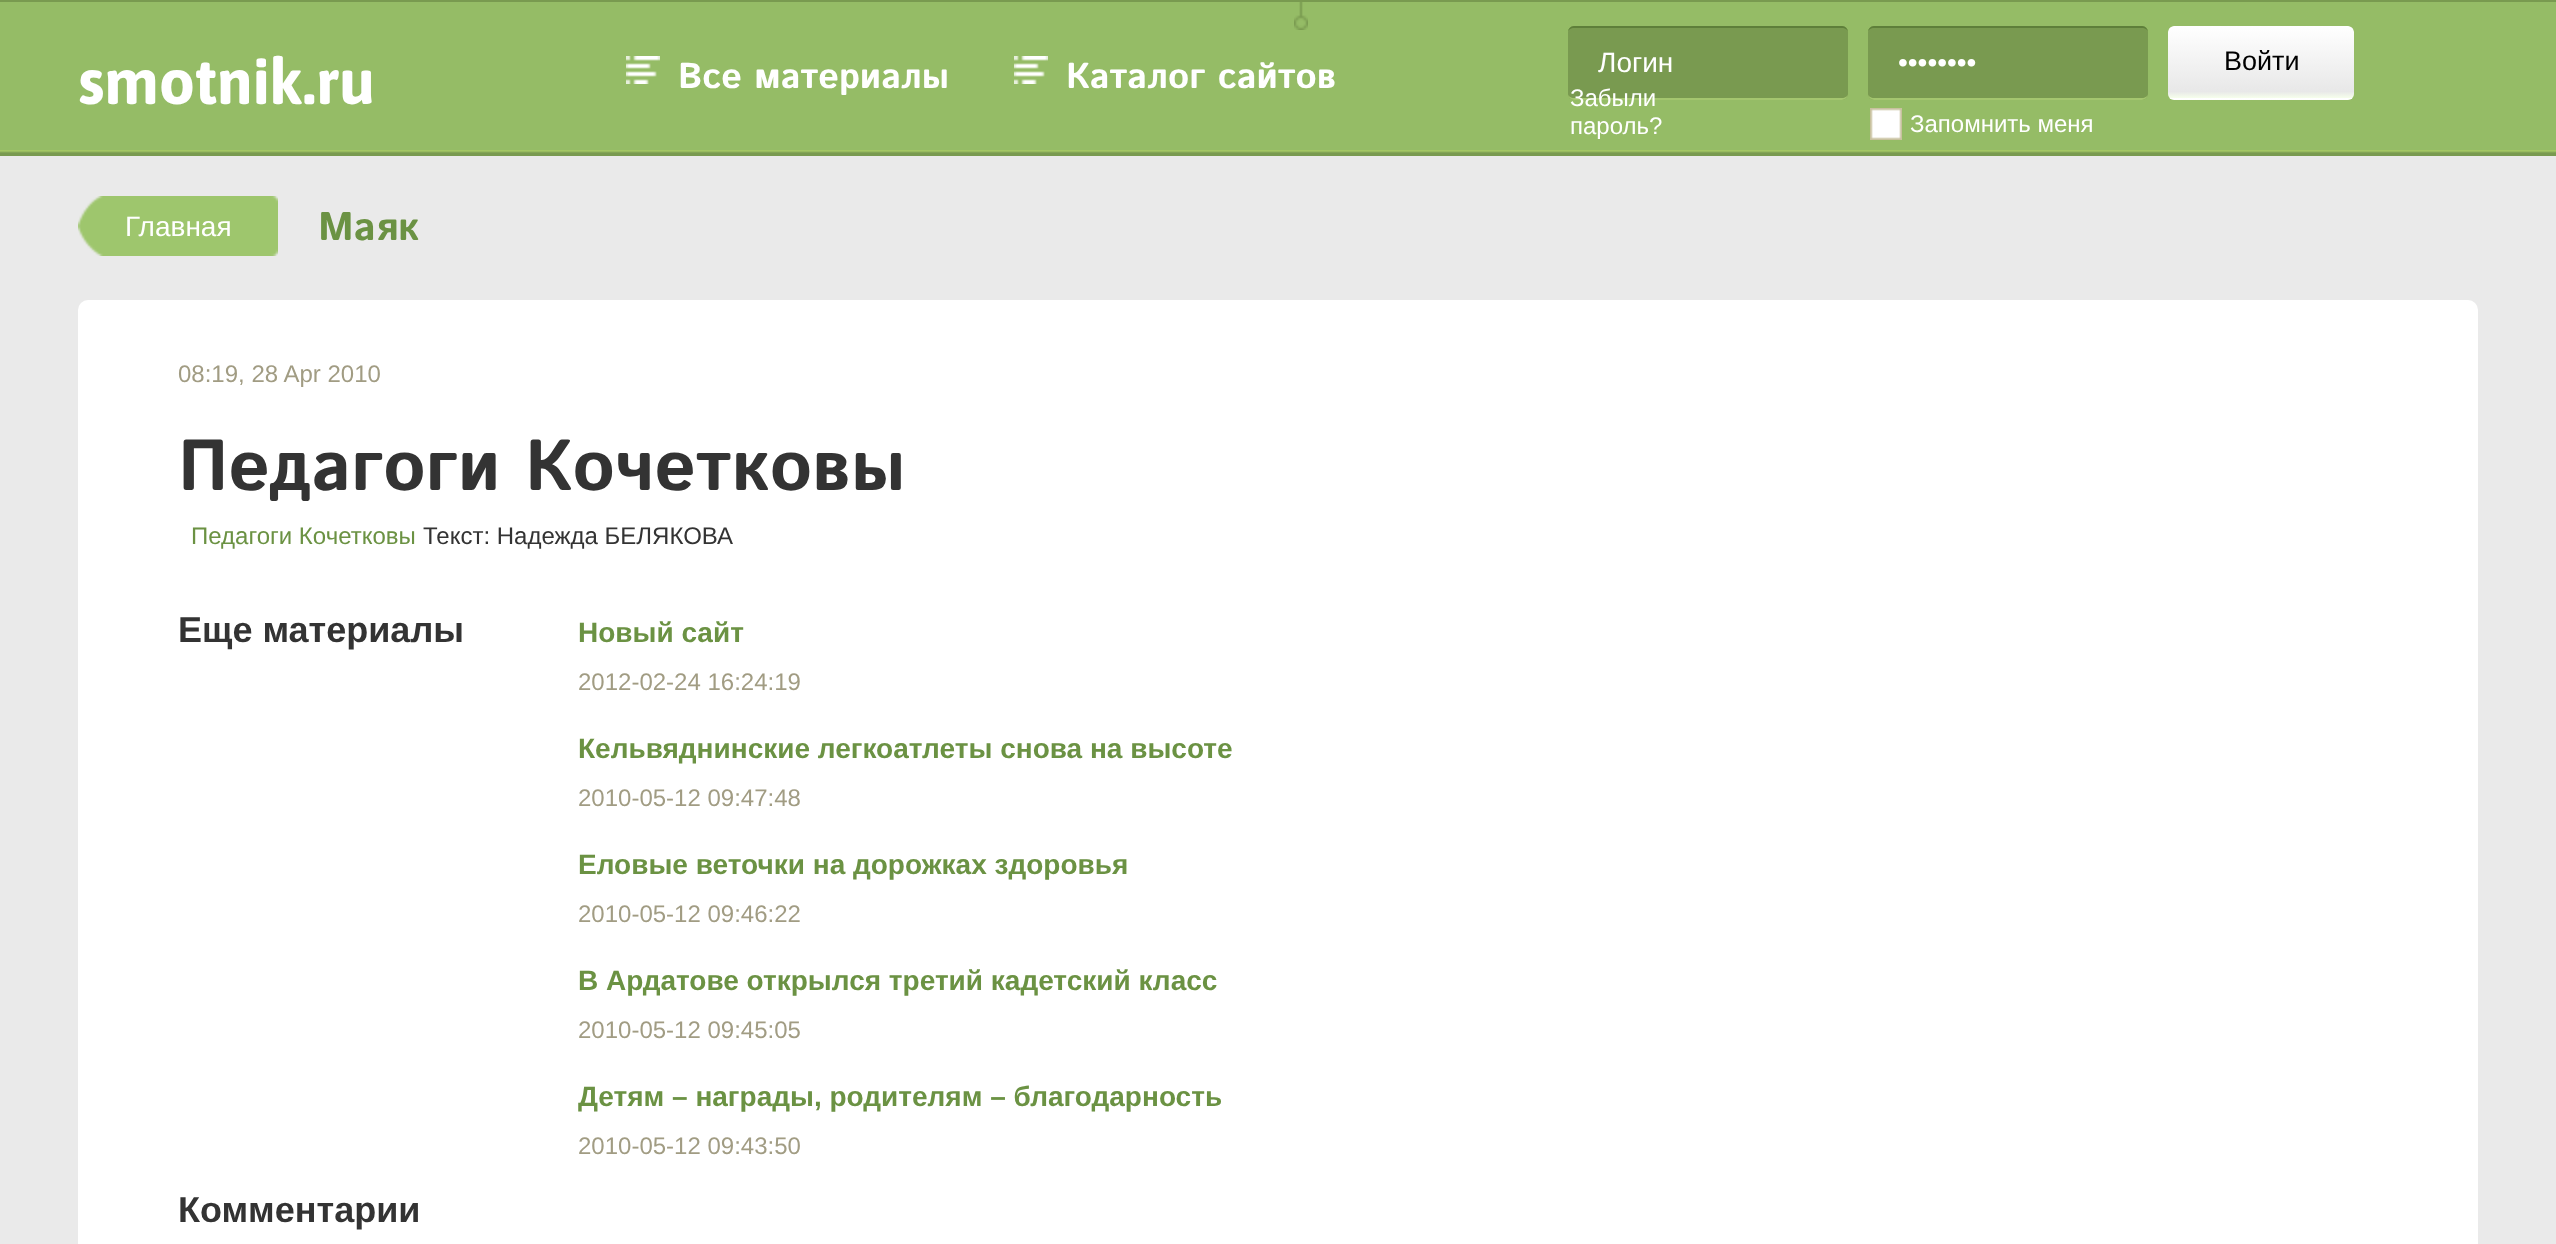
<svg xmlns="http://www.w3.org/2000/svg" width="2556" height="1244">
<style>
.a{font:bold 64px Asap;fill:#fff}
.b{font:bold 36px Istok Web;fill:#fff}
.c{font:28px Liberation Sans;fill:#fff}
.d{font:27px Liberation Sans;fill:#000}
.e{font:24px Liberation Sans;fill:#fff}
.f{font:bold 40px Istok Web;fill:#6b9243}
.g{font:24px Liberation Sans;fill:#a19c83}
.h{font:bold 72px Istok Web;fill:#333}
.i{font:24px Liberation Sans;fill:#6b9243}
.j{font:24px Liberation Sans;fill:#333}
.k{font:bold 36px Liberation Sans;fill:#333}
.l{font:bold 28px Liberation Sans;fill:#6b9243}
</style>
<defs>
<clipPath id="clip1"><rect x="2168" y="26" width="186" height="74" rx="6"/></clipPath>
<linearGradient id="g1" gradientUnits="userSpaceOnUse" x1="2261" y1="26" x2="2261" y2="98"><stop offset="0" stop-color="#fff"/><stop offset="0.91" stop-color="#e8e8e8"/><stop offset="1" stop-color="#f6ffeb"/></linearGradient>
<linearGradient id="g2" gradientUnits="userSpaceOnUse" x1="2261" y1="98" x2="2261" y2="170"><stop offset="0" stop-color="#fff"/><stop offset="0.91" stop-color="#e8e8e8"/><stop offset="1" stop-color="#f6ffeb"/></linearGradient>
</defs>
<rect width="100%" height="100%" fill="#eaeaea"/>
<path fill="#799a50" d="M0 0h2556v2H0z"/>
<path fill="#95bc66" d="M0 2h2556v148H0z"/>
<image href="1.png" x="1294" y="2" width="14" height="28"/>
<image href="2.png" x="0" y="150" width="2556" height="6"/>
<image href="3.png" x="78" y="150" width="2400" height="6"/>
<image href="4.png" x="626" y="56" width="34" height="28"/>
<image href="4.png" x="1014" y="56" width="34" height="28"/>
<rect fill="#799a50" x="1568" y="26" width="280" height="74" rx="6"/>
<path fill="#5e7f3a" d="M1574 26c-3 0-6 3-6 6c0-2 3-4 6-4h268c3 0 6 2 6 4c0-3-3-6-6-6z"/>
<path fill="#a4c66f" d="M1842 100c3 0 6-3 6-6c0 2-3 4-6 4h-268c-3 0-6-2-6-4c0 3 3 6 6 6z"/>
<rect fill="#799a50" x="1868" y="26" width="280" height="74" rx="6"/>
<path fill="#5e7f3a" d="M1874 26c-3 0-6 3-6 6c0-2 3-4 6-4h268c3 0 6 2 6 4c0-3-3-6-6-6z"/>
<path fill="#a4c66f" d="M2142 100c3 0 6-3 6-6c0 2-3 4-6 4h-268c-3 0-6-2-6-4c0 3 3 6 6 6z"/>
<g clip-path="url(#clip1)">
<path fill="url(#g1)" d="M2174 26h174c3.5 0 6 2.5 6 6v66h-186v-66c0-3.5 2.5-6 6-6z"/>
<path fill="url(#g2)" d="M2168 98h186v2H2168z"/>
</g>
<image href="5.png" x="1870" y="108" width="32" height="32"/>
<image href="6.png" x="78" y="196" width="200" height="60"/>
<rect fill="#fff" x="78" y="300" width="2400" height="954" rx="10"/>
<text class="a" x="78" y="104">smotnik.ru</text>
<text class="b" x="678" y="88">Все материалы</text>
<text class="b" x="1066" y="88">Каталог сайтов</text>
<text class="c" x="1598" y="72">Логин</text>
<text class="c" x="1898" y="72">••••••••</text>
<text class="d" x="2224" y="70">Войти</text>
<text class="e" x="1570" y="106">Забыли</text>
<text class="e" x="1570" y="134">пароль?</text>
<text class="e" x="1910" y="132">Запомнить меня</text>
<text class="c" x="125" y="236">Главная</text>
<text class="f" x="318" y="240">Маяк</text>
<text class="g" x="178" y="382">08:19, 28 Apr 2010</text>
<text class="h" x="178" y="490">Педагоги Кочетковы</text>
<text class="i" x="191" y="544">Педагоги Кочетковы</text>
<text class="j" x="423" y="544">Текст: Надежда БЕЛЯКОВА</text>
<text class="k" x="178" y="642">Еще материалы</text>
<text class="l" x="578" y="642">Новый сайт</text>
<text class="g" x="578" y="690">2012-02-24 16:24:19</text>
<text class="l" x="578" y="758">Кельвяднинские легкоатлеты снова на высоте</text>
<text class="g" x="578" y="806">2010-05-12 09:47:48</text>
<text class="l" x="578" y="874">Еловые веточки на дорожках здоровья</text>
<text class="g" x="578" y="922">2010-05-12 09:46:22</text>
<text class="l" x="578" y="990">В Ардатове открылся третий кадетский класс</text>
<text class="g" x="578" y="1038">2010-05-12 09:45:05</text>
<text class="l" x="578" y="1106">Детям – награды, родителям – благодарность</text>
<text class="g" x="578" y="1154">2010-05-12 09:43:50</text>
<text class="k" x="178" y="1222">Комментарии</text>
</svg>
